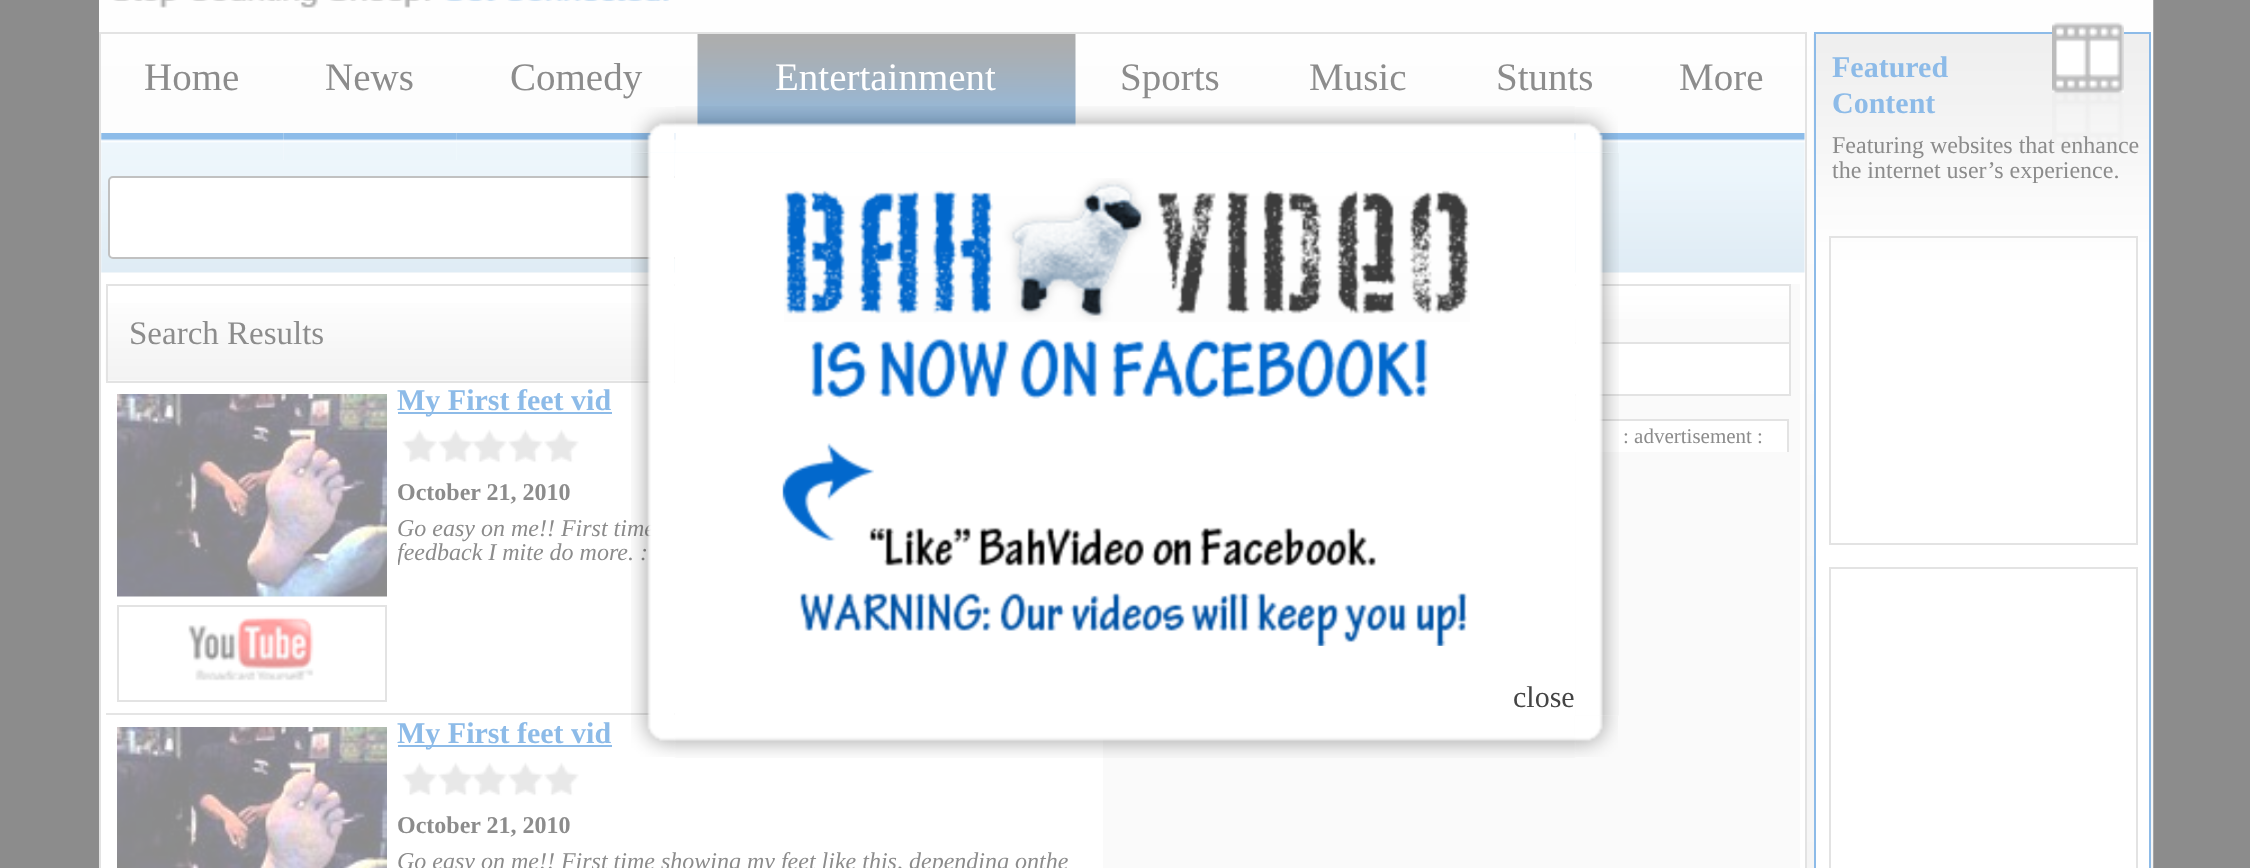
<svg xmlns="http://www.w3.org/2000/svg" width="2250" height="868">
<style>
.a{font:39px Liberation Serif;fill:#8c8c8c}
.b{font:39px Liberation Serif;fill:#fff}
.c{font:33px Liberation Serif;fill:#8c8c8c}
.d{font:bold 30px Liberation Serif;fill:#8dbbe8}
.e{font:bold 24px Liberation Serif;fill:#8c8c8c}
.f{font:italic 24px Liberation Serif;fill:#8c8c8c}
.g{font:21px Liberation Serif;fill:#8c8c8c}
.h{font:24px Liberation Serif;fill:#8c8c8c}
.i{font:30px Liberation Serif;fill:#444}
</style>
<defs>
<clipPath id="clip1"><path d="M398 504h675v61H398z"/></clipPath>
</defs>
<rect width="100%" height="100%" fill="#8c8c8c"/>
<image href="1.png" x="99" y="0" width="2055" height="868"/>
<image href="2.png" x="113" y="0" width="556" height="8"/>
<path fill="#fff" d="M101 169h1704v699H101z"/>
<path fill="none" stroke="#e3e3e3" stroke-width="2" d="M100 33h1706v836H100z"/>
<image href="3.png" x="697" y="34" width="379" height="93"/>
<image href="4.png" x="101" y="133" width="183" height="27"/>
<image href="5.png" x="283" y="133" width="174" height="27"/>
<image href="6.png" x="456" y="133" width="242" height="27"/>
<image href="7.png" x="697" y="152" width="379" height="1"/>
<image href="8.png" x="1075" y="152" width="190" height="1"/>
<image href="9.png" x="1264" y="152" width="188" height="1"/>
<image href="10.png" x="1451" y="133" width="187" height="27"/>
<image href="11.png" x="1638" y="133" width="167" height="27"/>
<image href="12.png" x="101" y="160" width="1704" height="113"/>
<rect fill="#fff" stroke="#c1c1c1" stroke-width="2" x="109" y="177" width="916" height="81" rx="4"/>
<image href="13.png" x="105" y="303" width="570" height="78"/>
<path fill="none" stroke="#e3e3e3" stroke-width="2" d="M107 285h988v97H107z"/>
<path fill="#e5e5e5" d="M106 713h569v2H106z"/>
<image href="14.png" x="117" y="394" width="270" height="203"/>
<path fill="none" stroke="#e3e3e3" stroke-width="2" d="M118 606h268v95H118z"/>
<image href="15.png" x="188" y="616" width="126" height="65"/>
<path fill="#8dbbe8" d="M398 412h214v2H398z"/>
<image href="16.png" x="402" y="429" width="177" height="34"/>
<image href="17.png" x="117" y="727" width="270" height="141"/>
<path fill="#8dbbe8" d="M398 745h214v2H398z"/>
<image href="16.png" x="402" y="762" width="177" height="34"/>
<path fill="#fafafa" d="M1103 284h697v584H1103z"/>
<image href="18.png" x="1575" y="286" width="214" height="33"/>
<path fill="none" stroke="#e3e3e3" stroke-width="2" d="M1113 285h677v58H1113z"/>
<path fill="#fff" d="M1575 344h214v50H1575z"/>
<path fill="#e3e3e3" d="M1789 344h2v52H1789z"/>
<path fill="#e3e3e3" d="M1575 394h216v2H1575z"/>
<path fill="#fff" d="M1575 421h212v31H1575z"/>
<path fill="#e3e3e3" d="M1575 419h214v2H1575z"/>
<path fill="#e3e3e3" d="M1787 419h2v33H1787z"/>
<path fill="#fff" d="M1816 391h333v477H1816z"/>
<image href="19.png" x="1813" y="34" width="336" height="357"/>
<path fill="none" stroke="#8dbbe8" stroke-width="2" d="M1815 33h335v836H1815z"/>
<image href="20.png" x="2052" y="22" width="72" height="124"/>
<path fill="none" stroke="#e3e3e3" stroke-width="2" d="M1830 237h307v307H1830z"/>
<path fill="none" stroke="#e3e3e3" stroke-width="2" d="M1830 568h307v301H1830z"/>
<image href="21.png" x="631" y="107" width="45" height="47"/>
<image href="22.png" x="674" y="106" width="902" height="47"/>
<image href="23.png" x="1574" y="107" width="44" height="47"/>
<image href="27.png" x="1575" y="153" width="44" height="563"/>
<text class="a" x="144" y="90">Home</text>
<text class="a" x="325" y="90">News</text>
<text class="a" x="510" y="90">Comedy</text>
<text class="b" x="775" y="90">Entertainment</text>
<text class="a" x="1120" y="90">Sports</text>
<text class="a" x="1309" y="90">Music</text>
<text class="a" x="1496" y="90">Stunts</text>
<text class="a" x="1679" y="90">More</text>
<text class="c" x="129" y="344">Search Results</text>
<text class="d" x="397" y="410">My First feet vid</text>
<text class="e" x="397" y="500">October 21, 2010</text>
<text class="f" x="397" y="536">Go easy on me!! First time</text>
<g clip-path="url(#clip1)">
<text class="f" x="397" y="560">feedback I mite do more. :</text>
</g>
<text class="d" x="397" y="743">My First feet vid</text>
<text class="e" x="397" y="833">October 21, 2010</text>
<text class="f" x="397" y="869">Go easy on me!! First time showing my feet like this,</text>
<text class="f" x="909" y="869">depending onthe</text>
<text class="g" x="1623" y="443">: advertisement :</text>
<text class="d" x="1832" y="77">Featured</text>
<text class="d" x="1832" y="113">Content</text>
<text class="h" x="1832" y="153">Featuring websites that enhance</text>
<text class="h" x="1832" y="178">the internet user’s experience.</text>
<image href="24.png" x="631" y="153" width="44" height="563"/>
<image href="28.png" x="631" y="715" width="45" height="42"/>
<image href="29.png" x="674" y="716" width="902" height="42"/>
<image href="30.png" x="1574" y="715" width="44" height="42"/>
<path fill="#fff" d="M675 153h900v563H675z"/>
<image href="26.png" x="782" y="443" width="685" height="203"/>
<text class="i" x="1513" y="707">close</text>
<image href="25.png" x="784" y="178" width="686" height="221"/>
</svg>
